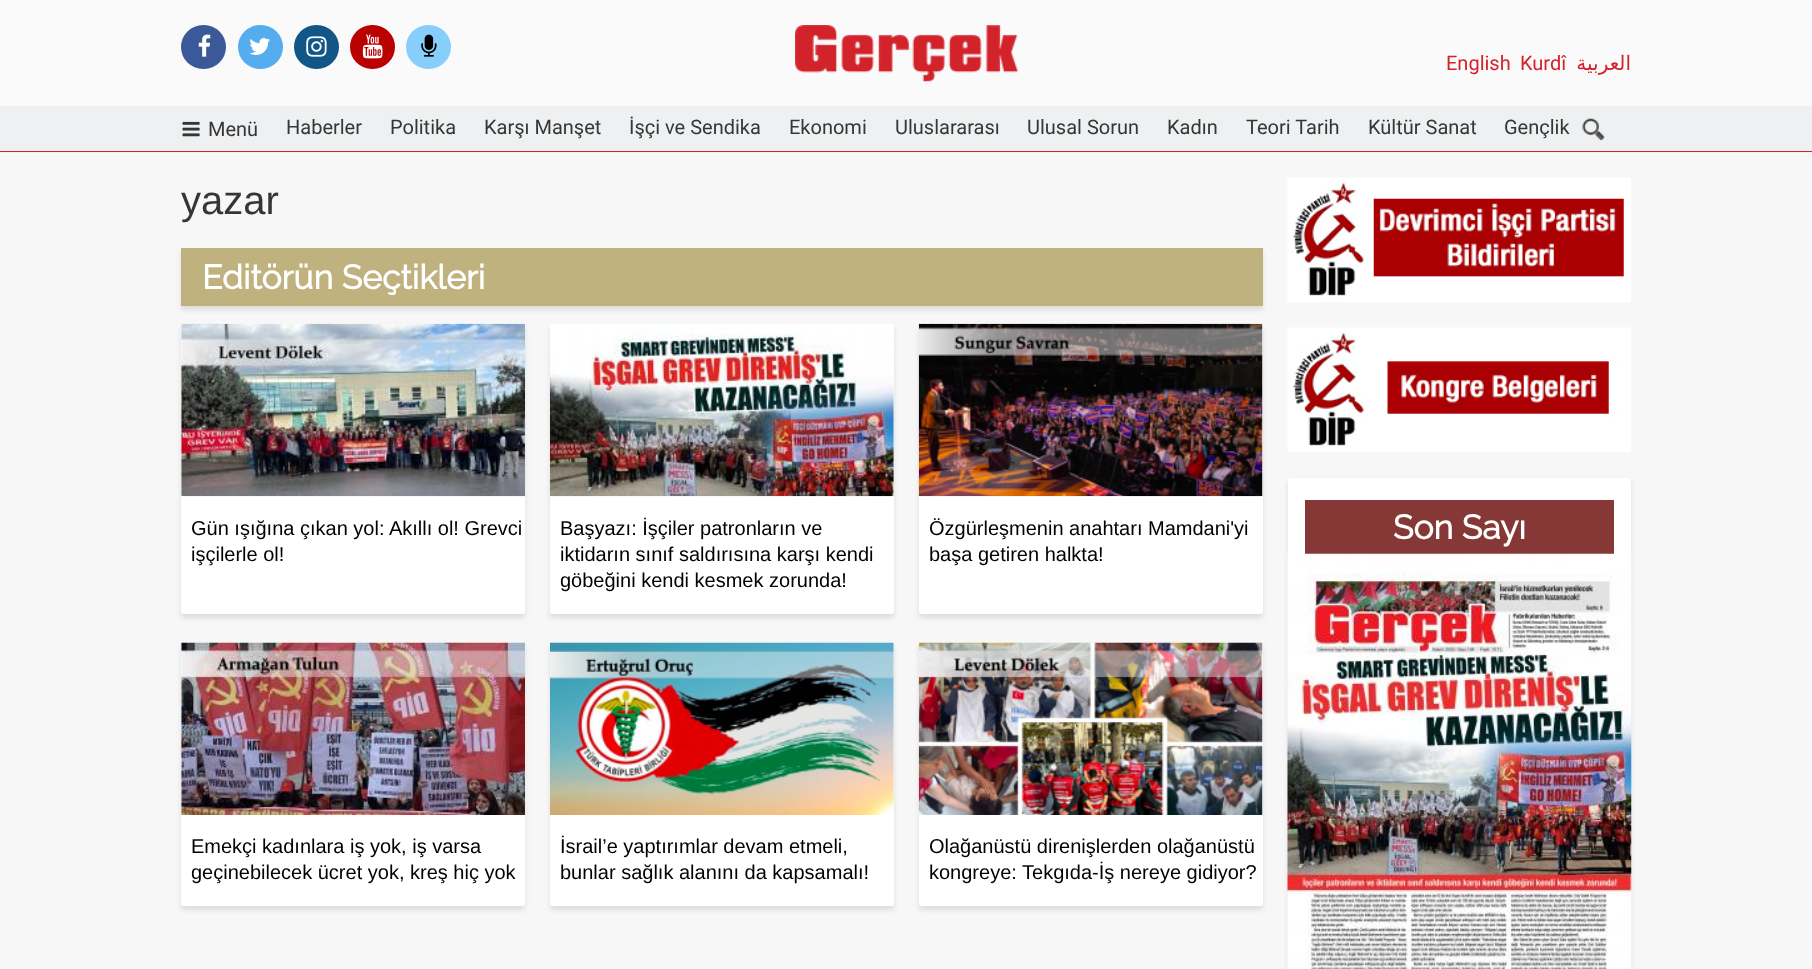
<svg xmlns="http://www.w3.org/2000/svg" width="1812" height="969">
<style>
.a{font:20px Roboto;fill:#d2242b}
.b{font:20px DejaVu Sans;direction:rtl;fill:#d2242b}
.c{font:20px Roboto;fill:#363636}
.d{font:40px Liberation Sans;fill:#363636}
.e{font:bold 33.75px Raleway;fill:#fff}
.f{font:20px Liberation Sans;fill:#000}
</style>
<rect width="100%" height="100%" fill="#f7f7f7"/>
<path fill="#fafafa" d="M0 0h1812v106H0z"/>
<rect fill="#3b5998" x="181" y="25" width="45" height="44" rx="22"/>
<image href="1.png" x="198" y="34" width="13" height="23"/>
<rect fill="#55acee" x="238" y="25" width="45" height="44" rx="22"/>
<image href="2.png" x="249" y="38" width="21" height="17"/>
<rect fill="#125688" x="294" y="25" width="45" height="44" rx="22"/>
<image href="3.png" x="306" y="36" width="21" height="21"/>
<rect fill="#b00" x="350" y="25" width="45" height="44" rx="22"/>
<image href="4.png" x="362" y="34" width="21" height="25"/>
<rect fill="#87cefa" x="406" y="25" width="45" height="44" rx="22"/>
<image href="5.png" x="421" y="34" width="16" height="23"/>
<image href="6.png" x="795" y="25" width="223" height="57"/>
<path fill="#eff0f1" d="M0 106h1812v47H0z"/>
<path fill="#d3242b" d="M0 151h1812v1H0z"/>
<image href="7.png" x="182" y="121" width="18" height="16"/>
<image href="8.png" x="1582" y="118" width="23" height="23"/>
<path fill="#0000001a" filter="blur(2.5px)" d="M181 251h1082v59H181z"/>
<path fill="#bfb27e" d="M181 248h1082v58H181z"/>
<rect fill="#0000001a" filter="blur(2.5px)" x="181" y="328" width="344" height="290" rx="2.5"/>
<rect fill="#fff" x="181" y="324" width="344" height="290" rx="2.5"/>
<image href="9.png" x="181" y="323" width="344" height="174"/>
<rect fill="#0000001a" filter="blur(2.5px)" x="550" y="328" width="344" height="290" rx="2.5"/>
<rect fill="#fff" x="550" y="324" width="344" height="290" rx="2.5"/>
<image href="10.png" x="550" y="324" width="344" height="173"/>
<rect fill="#0000001a" filter="blur(2.5px)" x="919" y="328" width="344" height="290" rx="2.5"/>
<rect fill="#fff" x="919" y="324" width="344" height="290" rx="2.5"/>
<image href="11.png" x="918" y="323" width="345" height="174"/>
<rect fill="#0000001a" filter="blur(2.5px)" x="181" y="646" width="344" height="264" rx="2.5"/>
<rect fill="#fff" x="181" y="643" width="344" height="263" rx="2.5"/>
<image href="12.png" x="181" y="642" width="344" height="173"/>
<rect fill="#0000001a" filter="blur(2.5px)" x="550" y="646" width="344" height="264" rx="2.5"/>
<rect fill="#fff" x="550" y="643" width="344" height="263" rx="2.5"/>
<image href="13.png" x="550" y="642" width="344" height="173"/>
<rect fill="#0000001a" filter="blur(2.5px)" x="919" y="646" width="344" height="264" rx="2.5"/>
<rect fill="#fff" x="919" y="643" width="344" height="263" rx="2.5"/>
<image href="14.png" x="918" y="642" width="345" height="173"/>
<image href="15.png" x="1287" y="177" width="344" height="126"/>
<image href="16.png" x="1287" y="327" width="344" height="126"/>
<rect fill="#0000001a" filter="blur(2.5px)" x="1288" y="481" width="343" height="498" rx="2.5"/>
<rect fill="#fff" x="1288" y="478" width="343" height="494" rx="2.5"/>
<path fill="#863836" d="M1305 500h309v54H1305z"/>
<image href="17.png" x="1287" y="553" width="345" height="416"/>
<text class="a" x="1446" y="70">English</text>
<text class="a" x="1520" y="70">Kurdî</text>
<text class="b" x="1631" y="70">العربية</text>
<text class="c" x="208" y="136">Menü</text>
<text class="c" x="286" y="134">Haberler</text>
<text class="c" x="390" y="134">Politika</text>
<text class="c" x="484" y="134">Karşı Manşet</text>
<text class="c" x="629" y="134">İşçi ve Sendika</text>
<text class="c" x="789" y="134">Ekonomi</text>
<text class="c" x="895" y="134">Uluslararası</text>
<text class="c" x="1027" y="134">Ulusal Sorun</text>
<text class="c" x="1167" y="134">Kadın</text>
<text class="c" x="1246" y="134">Teori Tarih</text>
<text class="c" x="1368" y="134">Kültür Sanat</text>
<text class="c" x="1504" y="134">Gençlik</text>
<text class="d" x="181" y="214">yazar</text>
<text class="e" x="202" y="289">Editörün Seçtikleri</text>
<text class="f" x="191" y="535">Gün ışığına çıkan yol: Akıllı ol! Grevci</text>
<text class="f" x="191" y="561">işçilerle ol!</text>
<text class="f" x="560" y="535">Başyazı: İşçiler patronların ve</text>
<text class="f" x="560" y="561">iktidarın sınıf saldırısına karşı kendi</text>
<text class="f" x="560" y="587">göbeğini kendi kesmek zorunda!</text>
<text class="f" x="929" y="535">Özgürleşmenin anahtarı Mamdani'yi</text>
<text class="f" x="929" y="561">başa getiren halkta!</text>
<text class="f" x="191" y="853">Emekçi kadınlara iş yok, iş varsa</text>
<text class="f" x="191" y="879">geçinebilecek ücret yok, kreş hiç yok</text>
<text class="f" x="560" y="853">İsrail’e yaptırımlar devam etmeli,</text>
<text class="f" x="560" y="879">bunlar sağlık alanını da kapsamalı!</text>
<text class="f" x="929" y="853">Olağanüstü direnişlerden olağanüstü</text>
<text class="f" x="929" y="879">kongreye: Tekgıda-İş nereye gidiyor?</text>
<text class="e" x="1393" y="539">Son Sayı</text>
</svg>
